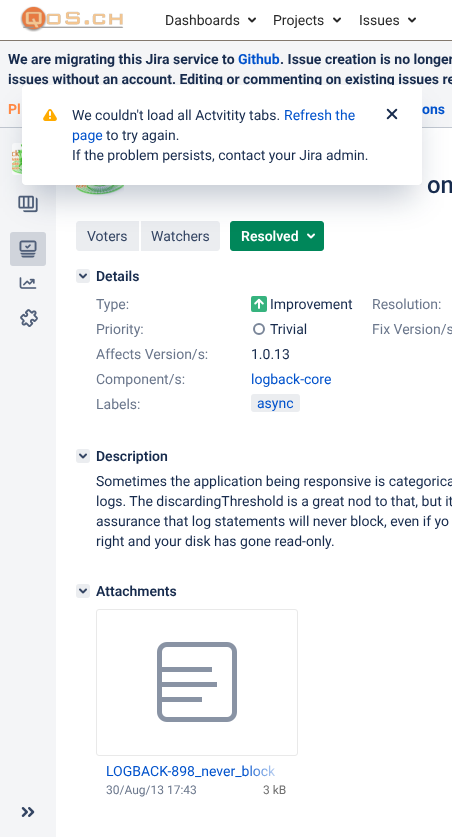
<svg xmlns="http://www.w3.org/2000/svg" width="452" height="837">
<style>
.a{font:14px Roboto;fill:#292929}
.b{font:bold 14px Roboto;fill:#172b4d}
.c{font:bold 14px Roboto;fill:#0052cc}
.d{font:bold 14px Roboto;fill:#f84}
.e{font:500 24px Roboto;fill:#172b4d}
.f{font:14px Roboto;fill:#344563}
.g{font:600 14px Roboto;fill:#fff}
.h{font:600 14px Roboto;fill:#172b4d}
.i{font:14px Roboto;fill:#6b778c}
.j{font:14px Roboto;fill:#172b4d}
.k{font:14px Roboto;fill:#0052cc}
.l{font:12px Roboto;fill:#6b778c}
.m{font:12px Roboto;fill:#707070}
</style>
<defs>
<linearGradient id="g1" gradientUnits="userSpaceOnUse" x1="244" y1="772" x2="286" y2="772"><stop offset="0" stop-color="#fff" stop-opacity="0"/><stop offset="1" stop-color="#fff"/></linearGradient>
</defs>
<rect width="100%" height="100%" fill="#f4f5f7"/>
<path fill="#fff" d="M0 0h452v40H0z"/>
<path fill="#82786d" d="M0 40h452v1H0z"/>
<image href="1.png" x="20" y="6" width="104" height="26"/>
<image href="2.png" x="248" y="17" width="8" height="6"/>
<image href="2.png" x="333" y="17" width="8" height="6"/>
<image href="2.png" x="408" y="17" width="8" height="6"/>
<path fill="#c1c7d0" d="M0 127h452v1H0z"/>
<image href="3.png" x="12" y="143" width="10" height="32"/>
<image href="4.png" x="18" y="195" width="20" height="18"/>
<rect fill="#e1e4e9" x="10" y="232" width="36" height="34" rx="3"/>
<rect fill="#091e4214" x="10" y="232" width="36" height="34" rx="3"/>
<image href="5.png" x="19" y="240" width="18" height="18"/>
<image href="6.png" x="19" y="277" width="18" height="12"/>
<image href="7.png" x="20" y="309" width="18" height="18"/>
<image href="8.png" x="21" y="807" width="14" height="10"/>
<path fill="#fff" d="M56 128h396v709H56z"/>
<image href="9.png" x="76" y="185" width="48" height="11"/>
<path fill="#ebedf0" d="M79 221h60v30h-60c-1.5 0-3-1.5-3-3v-24c0-1.5 1.5-3 3-3z"/>
<path fill="#ebedf0" d="M141 221h76c1.5 0 3 1.5 3 3v24c0 1.5-1.5 3-3 3h-76z"/>
<rect fill="#00875a" stroke="#00875a" x="230.5" y="221.5" width="93" height="29" rx="2.5"/>
<image href="10.png" x="307" y="233" width="8" height="6"/>
<rect fill="#ebedf0" x="76" y="269" width="14" height="14" rx="3"/>
<image href="11.png" x="79" y="273" width="8" height="6"/>
<image href="12.png" x="251" y="296" width="16" height="16"/>
<circle fill="none" stroke="#7a8699" stroke-width="2" cx="259" cy="329" r="5"/>
<rect fill="#ebedf0" x="251" y="394" width="49" height="18" rx="3"/>
<rect fill="#ebedf0" x="76" y="449" width="14" height="14" rx="3"/>
<image href="11.png" x="79" y="453" width="8" height="6"/>
<rect fill="#ebedf0" x="76" y="584" width="14" height="14" rx="3"/>
<image href="11.png" x="79" y="588" width="8" height="6"/>
<rect fill="none" stroke="#e9e9e9" x="96.5" y="609.5" width="201" height="146" rx="2.5"/>
<image href="13.png" x="157" y="642" width="80" height="80"/>
<rect fill="#091e4240" filter="blur(0.5px)" x="22" y="85" width="400" height="100" rx="3"/>
<path fill="#091e4240" filter="blur(16px)" d="M30 113h384v84H30z"/>
<text class="a" x="165" y="25">Dashboards</text>
<text class="a" x="273" y="25">Projects</text>
<text class="a" x="359" y="25">Issues</text>
<text class="b" x="8" y="64">We are migrating this Jira service to</text>
<text class="c" x="238" y="64">Github</text>
<text class="b" x="280" y="64">. Issue creation is no longer</text>
<text class="b" x="8" y="84">issues without an account. Editing or commenting on existing issues re</text>
<text class="d" x="8" y="114">Pl</text>
<text class="c" x="422" y="114">ons</text>
<text class="e" x="427" y="193">on</text>
<text class="f" x="87" y="241">Voters</text>
<text class="f" x="151" y="241">Watchers</text>
<text class="g" x="241" y="241">Resolved</text>
<text class="h" x="96" y="281">Details</text>
<text class="i" x="96" y="309">Type:</text>
<text class="j" x="270" y="309">Improvement</text>
<text class="i" x="372" y="309">Resolution:</text>
<text class="i" x="96" y="334">Priority:</text>
<text class="j" x="270" y="334">Trivial</text>
<text class="i" x="372" y="334">Fix Version/s</text>
<text class="i" x="96" y="359">Affects Version/s:</text>
<text class="j" x="251" y="359">1.0.13</text>
<text class="i" x="96" y="384">Component/s:</text>
<text class="k" x="251" y="384">logback-core</text>
<text class="i" x="96" y="409">Labels:</text>
<text class="k" x="257" y="408">async</text>
<text class="h" x="96" y="461">Description</text>
<text class="j" x="96" y="486">Sometimes the application being responsive is categorica</text>
<text class="j" x="96" y="506">logs. The discardingThreshold is a great nod to that, but it</text>
<text class="j" x="96" y="526">assurance that log statements will never block, even if yo</text>
<text class="j" x="96" y="546">right and your disk has gone read-only.</text>
<text class="h" x="96" y="596">Attachments</text>
<text class="k" x="106" y="776">LOGBACK-898_never_block</text>
<path fill="url(#g1)" d="M245 765h31v12H245z"/>
<text class="l" x="106" y="794">30/Aug/13 17:43</text>
<text class="m" x="263" y="794">3 kB</text>
<rect fill="#fff" x="22" y="85" width="400" height="100" rx="3"/>
<image href="14.png" x="43" y="109" width="14" height="12"/>
<text class="j" x="72" y="120">We couldn't load all Actvitity tabs.</text>
<text class="k" x="284" y="120">Refresh the</text>
<image href="15.png" x="386" y="108" width="12" height="12"/>
<text class="k" x="72" y="140">page</text>
<text class="j" x="106" y="140">to try again.</text>
<text class="j" x="72" y="160">If the problem persists, contact your Jira admin.</text>
</svg>
